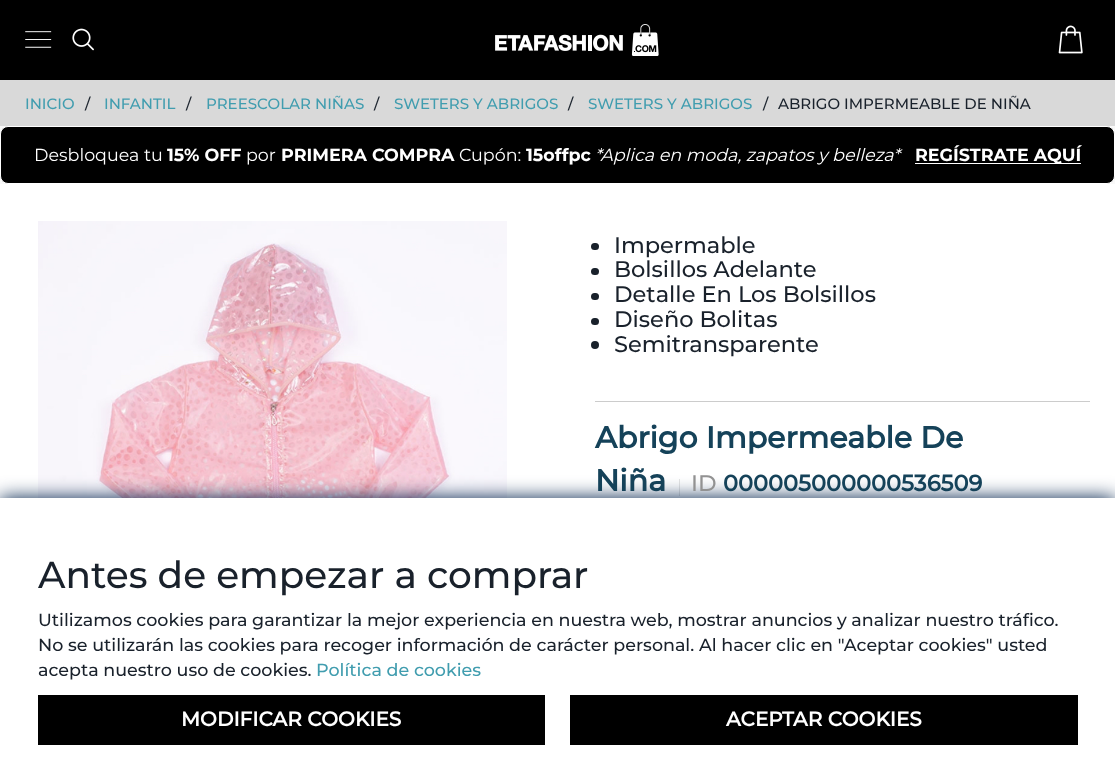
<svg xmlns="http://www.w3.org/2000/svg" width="1115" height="776">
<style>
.a{font:500 15px Montserrat;fill:#419daf}
.b{font:500 15px Montserrat;fill:#19212b}
.c{font:17.5px Montserrat;fill:#fff}
.d{font:bold 17.5px 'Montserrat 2';fill:#fff}
.e{font:italic 17.5px Montserrat;fill:#fff}
.f{font:500 22.5px Montserrat;fill:#19212b}
.g{font:bold 30px Montserrat;fill:#154259}
.h{font:500 22.5px Montserrat;fill:#929292}
.i{font:bold 22.5px Montserrat;fill:#154259}
.j{font:500 37.5px Montserrat;fill:#19212b}
.k{font:500 17.5px Montserrat;fill:#19212b}
.l{font:500 17.5px Montserrat;fill:#419daf}
.m{font:bold 20px Montserrat;fill:#fff}
</style>
<rect width="100%" height="100%" fill="#fff"/>
<path fill="#f8f8f8" d="M0 126h1115v58H0z"/>
<path fill="#000" d="M0 0h1115v80H0z"/>
<image href="1.png" x="25" y="31" width="27" height="17"/>
<image href="2.png" x="72" y="28" width="22" height="23"/>
<image href="3.png" x="495" y="24" width="164" height="32"/>
<image href="4.png" x="1058" y="25" width="25" height="29"/>
<path fill="#d9d9d9" d="M0 80h1115v46H0z"/>
<rect fill="#000" stroke="#fff" x="0.5" y="126.5" width="1114" height="57" rx="7.5"/>
<path fill="#fff" d="M915 163h166v1H915z"/>
<image href="5.png" x="38" y="221" width="469" height="277"/>
<path fill="#ccc" d="M595 401h495v1H595z"/>
<rect fill="#19212b" x="591" y="243" width="8" height="7" rx="3.5"/>
<rect fill="#19212b" x="591" y="268" width="8" height="7" rx="3.5"/>
<rect fill="#19212b" x="591" y="293" width="8" height="7" rx="3.5"/>
<rect fill="#19212b" x="591" y="318" width="8" height="7" rx="3.5"/>
<circle fill="#19212b" cx="595" cy="345" r="4"/>
<path fill="#e5e5e5" d="M679 479h1v17H679z"/>
<path fill="#00214b" filter="blur(9.5px)" d="M0 498h1115v278H0z"/>
<path fill="#fff" d="M0 498h1115v278H0z"/>
<path fill="#000" d="M38 695h507v50H38z"/>
<path fill="#000" d="M570 695h508v50H570z"/>
<text class="a" x="25" y="109">INICIO</text>
<text class="b" x="85" y="109">/</text>
<text class="a" x="104" y="109">INFANTIL</text>
<text class="b" x="186" y="109">/</text>
<text class="a" x="206" y="109">PREESCOLAR NIÑAS</text>
<text class="b" x="374" y="109">/</text>
<text class="a" x="394" y="109">SWETERS Y ABRIGOS</text>
<text class="b" x="568" y="109">/</text>
<text class="a" x="588" y="109">SWETERS Y ABRIGOS</text>
<text class="b" x="763" y="109">/</text>
<text class="b" x="778" y="109">ABRIGO IMPERMEABLE DE NIÑA</text>
<text class="c" x="34" y="161">Desbloquea tu</text>
<text class="d" x="167" y="161">15% OFF</text>
<text class="c" x="246" y="161">por</text>
<text class="d" x="281" y="161">PRIMERA COMPRA</text>
<text class="c" x="459" y="161">Cupón:</text>
<text class="d" x="526" y="161">15offpc</text>
<text class="e" x="595" y="161">*Aplica en moda, zapatos y belleza*</text>
<text class="d" x="915" y="161">REGÍSTRATE AQUÍ</text>
<text class="f" x="614" y="253">Impermable</text>
<text class="f" x="614" y="277">Bolsillos Adelante</text>
<text class="f" x="614" y="302">Detalle En Los Bolsillos</text>
<text class="f" x="614" y="327">Diseño Bolitas</text>
<text class="f" x="614" y="352">Semitransparente</text>
<text class="g" x="595" y="448">Abrigo Impermeable De</text>
<text class="g" x="595" y="491">Niña</text>
<text class="h" x="691" y="491">ID</text>
<text class="i" x="723" y="491">000005000000536509</text>
<text class="j" x="38" y="588">Antes de empezar a comprar</text>
<text class="k" x="38" y="626">Utilizamos cookies para garantizar la mejor experiencia en nuestra web, mostrar anuncios y analizar nuestro tráfico.</text>
<text class="k" x="38" y="651">No se utilizarán las cookies para recoger información de carácter personal. Al hacer clic en "Aceptar cookies" usted</text>
<text class="k" x="38" y="676">acepta nuestro uso de cookies.</text>
<text class="l" x="316" y="676">Política de cookies</text>
<text class="m" x="181" y="726">MODIFICAR COOKIES</text>
<text class="m" x="726" y="726">ACEPTAR COOKIES</text>
</svg>
